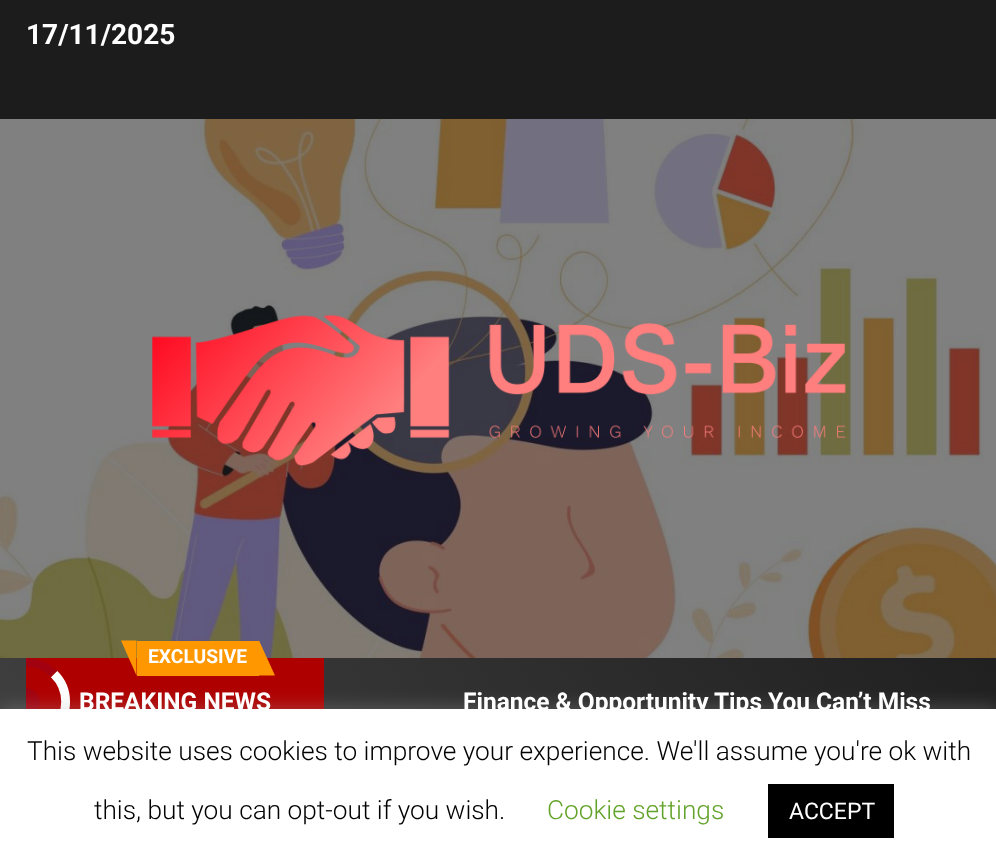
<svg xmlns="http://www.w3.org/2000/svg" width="996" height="867">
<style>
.a{font:bold 28px Roboto;fill:#fff}
.b{font:bold 19.25px Roboto;fill:#fff}
.c{font:bold 24.5px Roboto;fill:#fff}
.d{font:300 26.25px Roboto;fill:#000}
.e{font:300 26.25px Roboto;fill:#62a329}
.f{font:23px Roboto;fill:#fff}
</style>
<defs>
<linearGradient id="g1" gradientUnits="userSpaceOnUse" x1="228" y1="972" x2="770" y2="430"><stop offset="0" stop-color="#404040"/><stop offset="1" stop-color="#202020"/></linearGradient>
<clipPath id="clip1"><path d="M26 658h298v86H26z"/></clipPath>
</defs>
<rect width="100%" height="100%" fill="#1c1c1c"/>
<image href="1.png" x="0" y="119" width="996" height="539"/>
<image href="2.png" x="152" y="314" width="694" height="152"/>
<path fill="url(#g1)" d="M0 658h996v51H0z"/>
<path fill="#af0000" d="M26 658h298v51H26z"/>
<path fill="#ff9800" d="M137 641h122v35H137z"/>
<path fill="#ff9800" d="M121 640.5h15.5v35z"/>
<path fill="#ff9800" d="M275 675.5h-16v-35z"/>
<path fill="none" stroke="#fff" stroke-width="8.8" d="M54 674c15.5 15 15.5 40.5 0 55.5"/>
<g clip-path="url(#clip1)">
<path fill="none" stroke="#a2020f" stroke-width="8.8" d="M-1.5 674c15-15.5 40.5-15.5 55.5 0"/>
</g>
<path fill="#a2020f" d="M26 688c7.5 0 14 6.5 14 14c0 7.5-6.5 14-14 14z"/>
<path fill="#acabab4d" filter="blur(9px)" d="M0 707h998v159H0z"/>
<path fill="#fff" d="M0 709h996v158H0z"/>
<path fill="#000" d="M768 784h126v54H768z"/>
<text class="a" x="26" y="44">17/11/2025</text>
<text class="b" x="148" y="663">EXCLUSIVE</text>
<text class="c" x="79" y="710">BREAKING NEWS</text>
<text class="c" x="463" y="710">Finance &amp; Opportunity Tips You Can’t Miss</text>
<text class="d" x="27" y="760">This website uses cookies to improve your experience. We'll assume you're ok with</text>
<text class="d" x="94" y="819">this, but you can opt-out if you wish.</text>
<text class="e" x="547" y="819">Cookie settings</text>
<text class="f" x="789" y="819">ACCEPT</text>
</svg>
